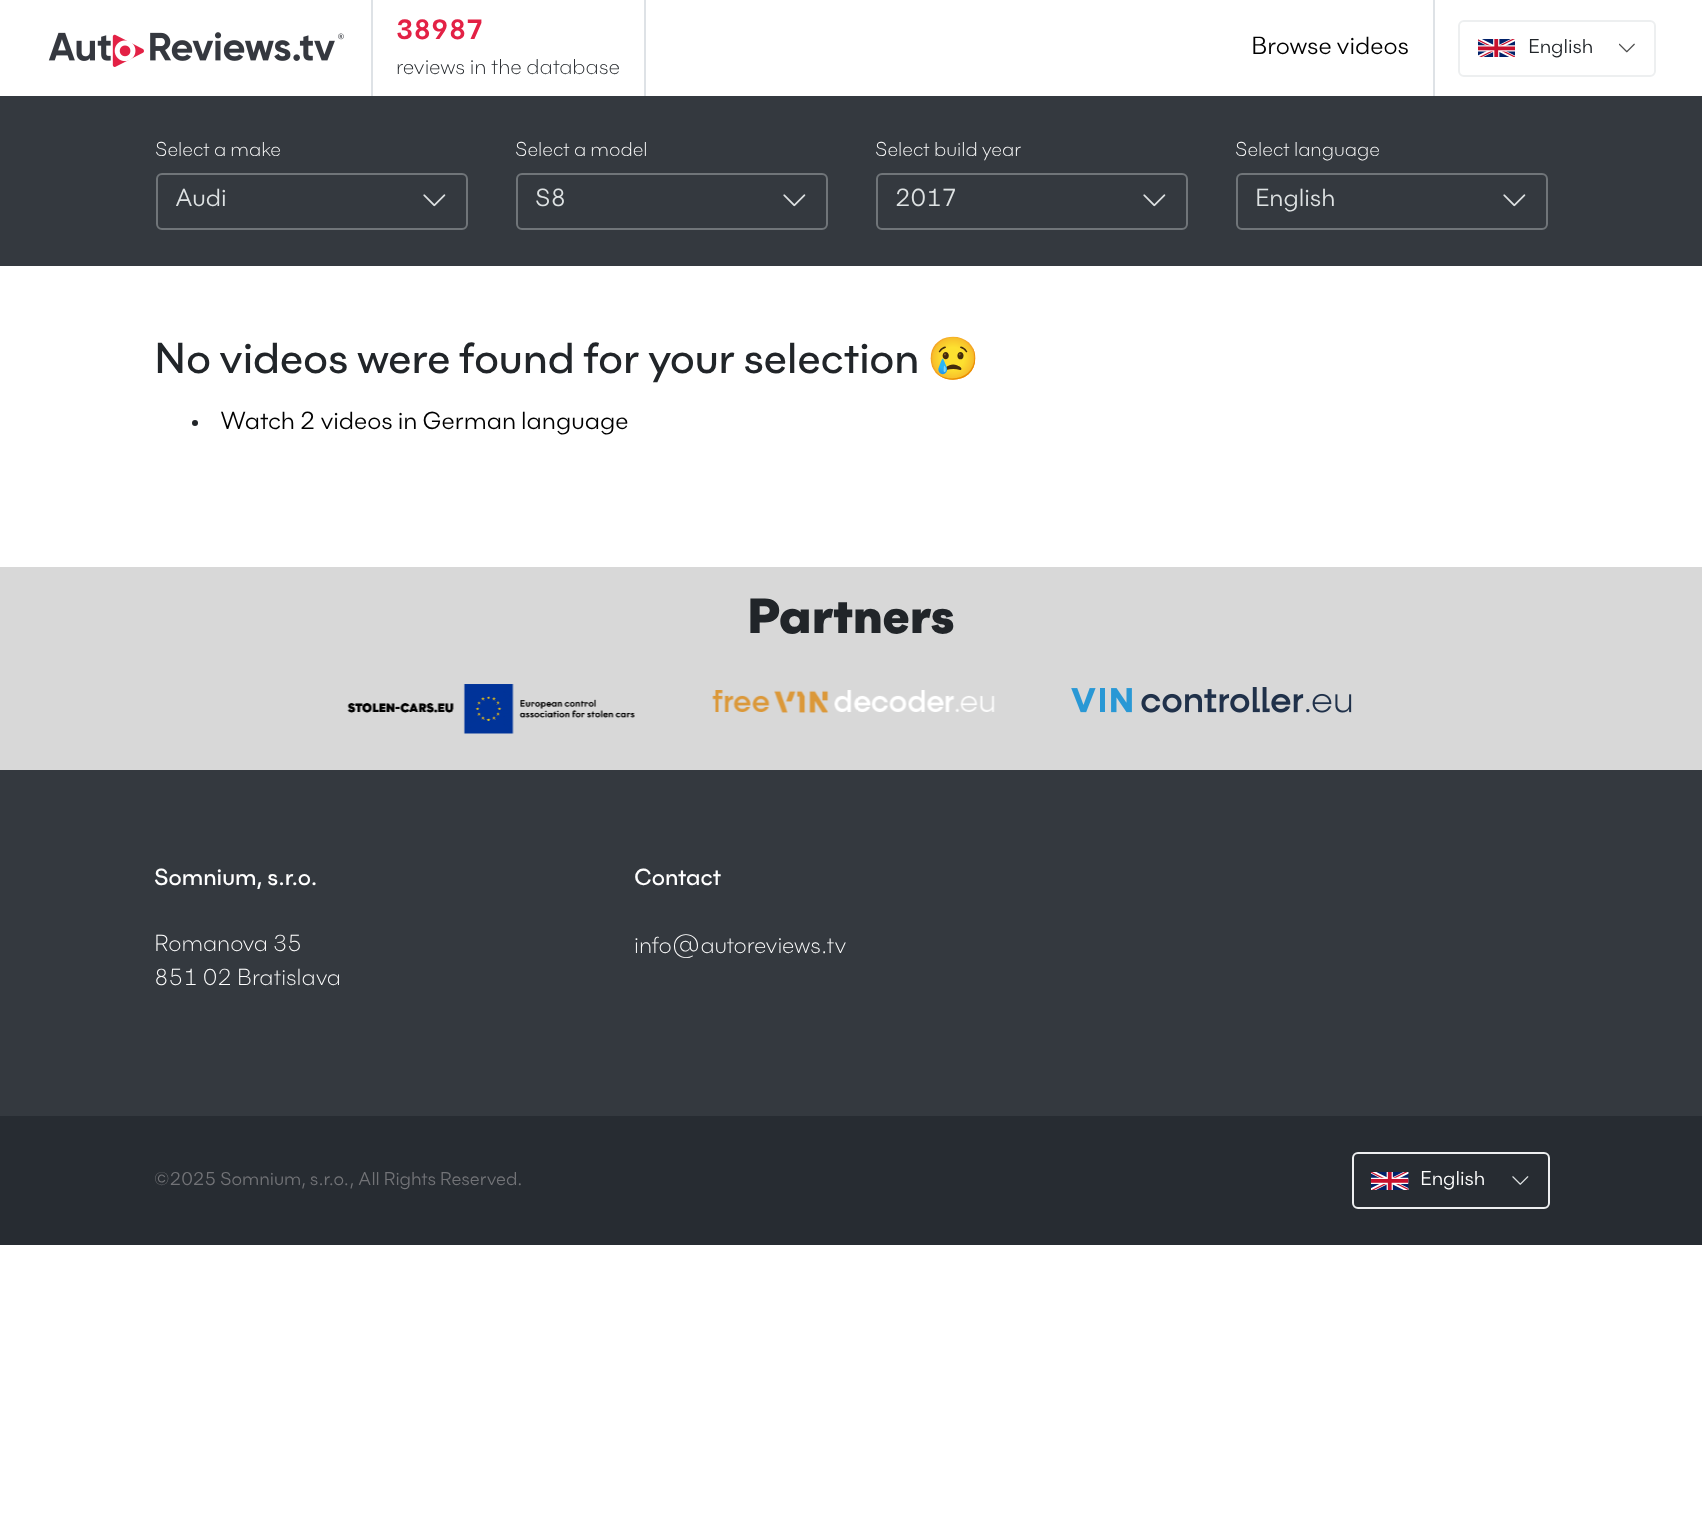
<svg xmlns="http://www.w3.org/2000/svg" width="1702" height="1528">
<style>
.a{font:bold 27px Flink;fill:#e32145}
.b{font:300 21px Flink;fill:#212529}
.c{font:24px Flink;fill:#000}
.d{font:19.5px Flink;fill:#212529}
.e{font:300 19.5px Flink;fill:#fff}
.f{font:24px Flink;fill:#dee2e3}
.g{font:500 42px Flink;fill:#212529}
.h{font:42px Noto Color Emoji;fill:#212529}
.i{font:900 48px Flink;fill:#212529}
.j{font:500 22.5px Flink;fill:#fff}
.k{font:300 22.5px Flink;fill:#fff}
.l{font:18px Flink;fill:#727377}
.m{font:19.5px Flink;fill:#fff}
</style>
<rect width="100%" height="100%" fill="#fff"/>
<image href="1.png" x="48" y="32" width="296" height="35"/>
<path fill="#dee2e6" d="M644 0h2v96H644z"/>
<path fill="#dee2e6" d="M371 0h2v96H371z"/>
<path fill="#dee2e6" d="M1433 0h2v96H1433z"/>
<rect fill="none" stroke="#edeff0" stroke-width="2" x="1459" y="21" width="196" height="55" rx="5"/>
<image href="2.png" x="1478" y="39" width="37" height="18"/>
<image href="3.png" x="1619" y="43" width="16" height="10"/>
<path fill="#34393f" d="M0 96h1702v170H0z"/>
<rect fill="none" stroke="#707579" stroke-width="2" x="157" y="174" width="310" height="55" rx="5"/>
<image href="4.png" x="423" y="194" width="23" height="13"/>
<rect fill="none" stroke="#707579" stroke-width="2" x="517" y="174" width="310" height="55" rx="5"/>
<image href="4.png" x="783" y="194" width="23" height="13"/>
<rect fill="none" stroke="#707579" stroke-width="2" x="877" y="174" width="310" height="55" rx="5"/>
<image href="4.png" x="1143" y="194" width="23" height="13"/>
<rect fill="none" stroke="#707579" stroke-width="2" x="1237" y="174" width="310" height="55" rx="5"/>
<image href="4.png" x="1503" y="194" width="23" height="13"/>
<circle fill="#212529" cx="195" cy="423" r="3"/>
<path fill="#d8d8d8" d="M0 567h1702v203H0z"/>
<image href="5.png" x="347" y="684" width="288" height="50"/>
<image href="6.png" x="712" y="690" width="283" height="23"/>
<image href="7.png" x="1071" y="687" width="281" height="26"/>
<path fill="#34393f" d="M0 770h1702v346H0z"/>
<path fill="#272c32" d="M0 1116h1702v129H0z"/>
<rect fill="none" stroke="#edeff0" stroke-width="2" x="1353" y="1153" width="196" height="55" rx="5"/>
<image href="8.png" x="1371" y="1172" width="38" height="18"/>
<image href="9.png" x="1512" y="1176" width="17" height="9"/>
<text class="a" x="396" y="39">38987</text>
<text class="b" x="396" y="74">reviews in the database</text>
<text class="c" x="1251" y="54">Browse videos</text>
<text class="d" x="1528" y="53">English</text>
<text class="e" x="155" y="156">Select a make</text>
<text class="f" x="175" y="206">Audi</text>
<text class="e" x="515" y="156">Select a model</text>
<text class="f" x="535" y="206">S8</text>
<text class="e" x="875" y="156">Select build year</text>
<text class="f" x="895" y="206">2017</text>
<text class="e" x="1235" y="156">Select language</text>
<text class="f" x="1255" y="206">English</text>
<text class="g" x="154" y="373">No videos were found for your selection</text>
<text class="h" x="927" y="373">😢</text>
<text class="c" x="220" y="429">Watch 2 videos in German language</text>
<text class="i" x="747" y="633">Partners</text>
<text class="j" x="154" y="885">Somnium, s.r.o.</text>
<text class="k" x="154" y="951">Romanova 35</text>
<text class="k" x="154" y="985">851 02 Bratislava</text>
<text class="j" x="634" y="885">Contact</text>
<text class="k" x="634" y="953">info@autoreviews.tv</text>
<text class="l" x="154" y="1185">©2025 Somnium, s.r.o., All Rights Reserved.</text>
<text class="m" x="1420" y="1185">English</text>
</svg>
